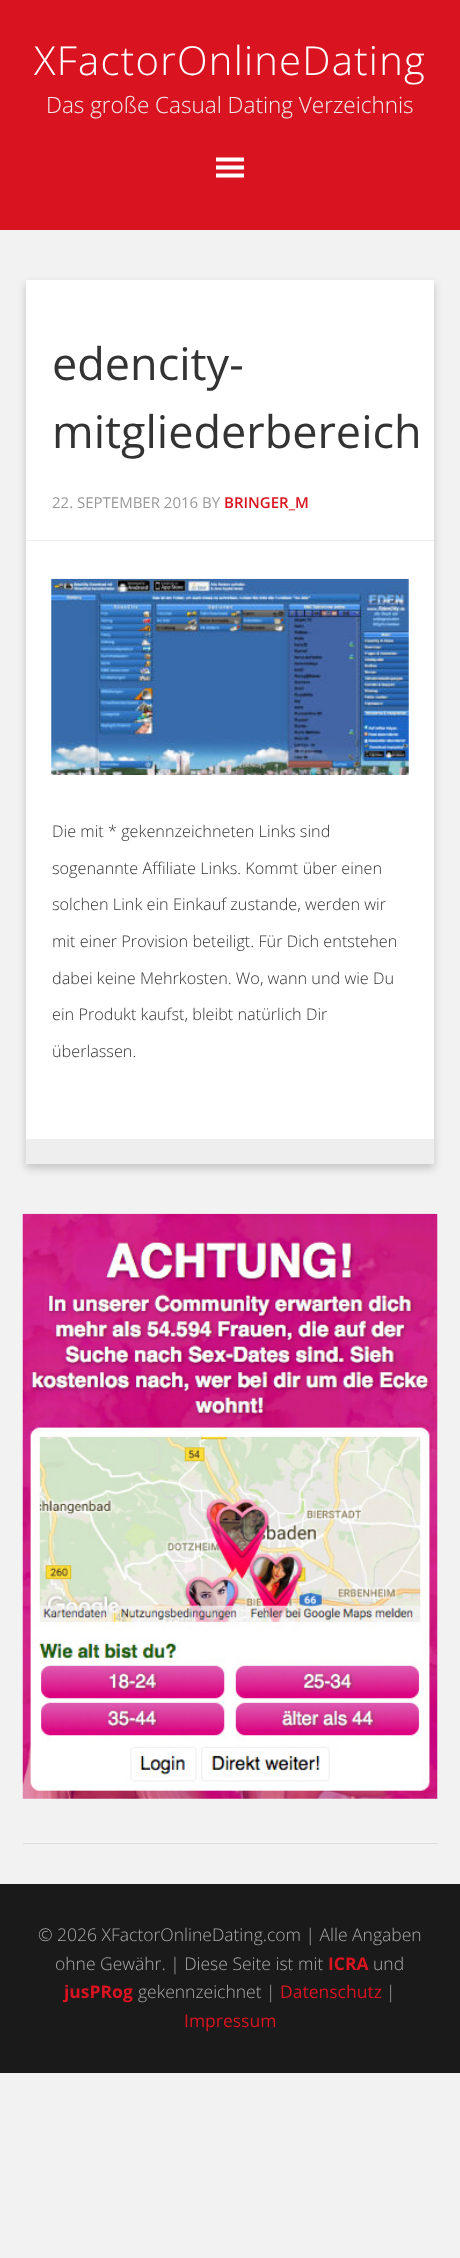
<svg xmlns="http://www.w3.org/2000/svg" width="460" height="2258">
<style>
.a{font:300 40px Open Sans;letter-spacing:1.25px;fill:#fff}
.b{font:300 22.5px Open Sans;fill:#eee}
.c{font:45px Open Sans;fill:#333}
.d{font:15px Open Sans;fill:#999}
.e{font:600 15px Open Sans;fill:#d91420}
.f{font:300 16.25px Open Sans;fill:#333}
.g{font:300 17.5px Open Sans;fill:#aaa}
.h{font:bold 17.5px Open Sans;fill:#d91420}
.i{font:17.5px Open Sans;fill:#d91420}
</style>
<rect width="100%" height="100%" fill="#f2f2f2"/>
<path fill="#d91420" d="M0 0h460v230H0z"/>
<image href="1.png" x="216" y="157" width="28" height="21"/>
<path fill="#00000033" filter="blur(4px)" d="M26 284h408v884H26z"/>
<path fill="#fff" d="M26 280h408v859H26z"/>
<path fill="#eee" d="M26 540h408v1H26z"/>
<image href="2.png" x="51" y="578" width="358" height="197"/>
<path fill="#eee" d="M26 1139h408v25H26z"/>
<path fill="#ddd" d="M23 1843h415v1H23z"/>
<image href="3.png" x="22" y="1213" width="416" height="586"/>
<path fill="#1a1a1a" d="M0 1884h460v189H0z"/>
<text class="a" x="34" y="75">XFactorOnlineDating</text>
<text class="b" x="46" y="113">Das große Casual Dating Verzeichnis</text>
<text class="c" x="52" y="380">edencity-</text>
<text class="c" x="52" y="448">mitgliederbereich</text>
<text class="d" x="52" y="508">22. SEPTEMBER 2016 BY</text>
<text class="e" x="224" y="508">BRINGER_M</text>
<text class="f" x="52" y="837">Die mit * gekennzeichneten Links sind</text>
<text class="f" x="52" y="874">sogenannte Affiliate Links. Kommt über einen</text>
<text class="f" x="52" y="910">solchen Link ein Einkauf zustande, werden wir</text>
<text class="f" x="52" y="947">mit einer Provision beteiligt. Für Dich entstehen</text>
<text class="f" x="52" y="984">dabei keine Mehrkosten. Wo, wann und wie Du</text>
<text class="f" x="52" y="1020">ein Produkt kaufst, bleibt natürlich Dir</text>
<text class="f" x="52" y="1057">überlassen.</text>
<text class="g" x="38" y="1941">© 2026 XFactorOnlineDating.com | Alle Angaben</text>
<text class="g" x="55" y="1970">ohne Gewähr. | Diese Seite ist mit</text>
<text class="h" x="328" y="1970">ICRA</text>
<text class="g" x="373" y="1970">und</text>
<text class="h" x="64" y="1998">jusPRog</text>
<text class="g" x="138" y="1998">gekennzeichnet |</text>
<text class="i" x="280" y="1998">Datenschutz</text>
<text class="g" x="386" y="1998">|</text>
<text class="i" x="184" y="2027">Impressum</text>
</svg>
